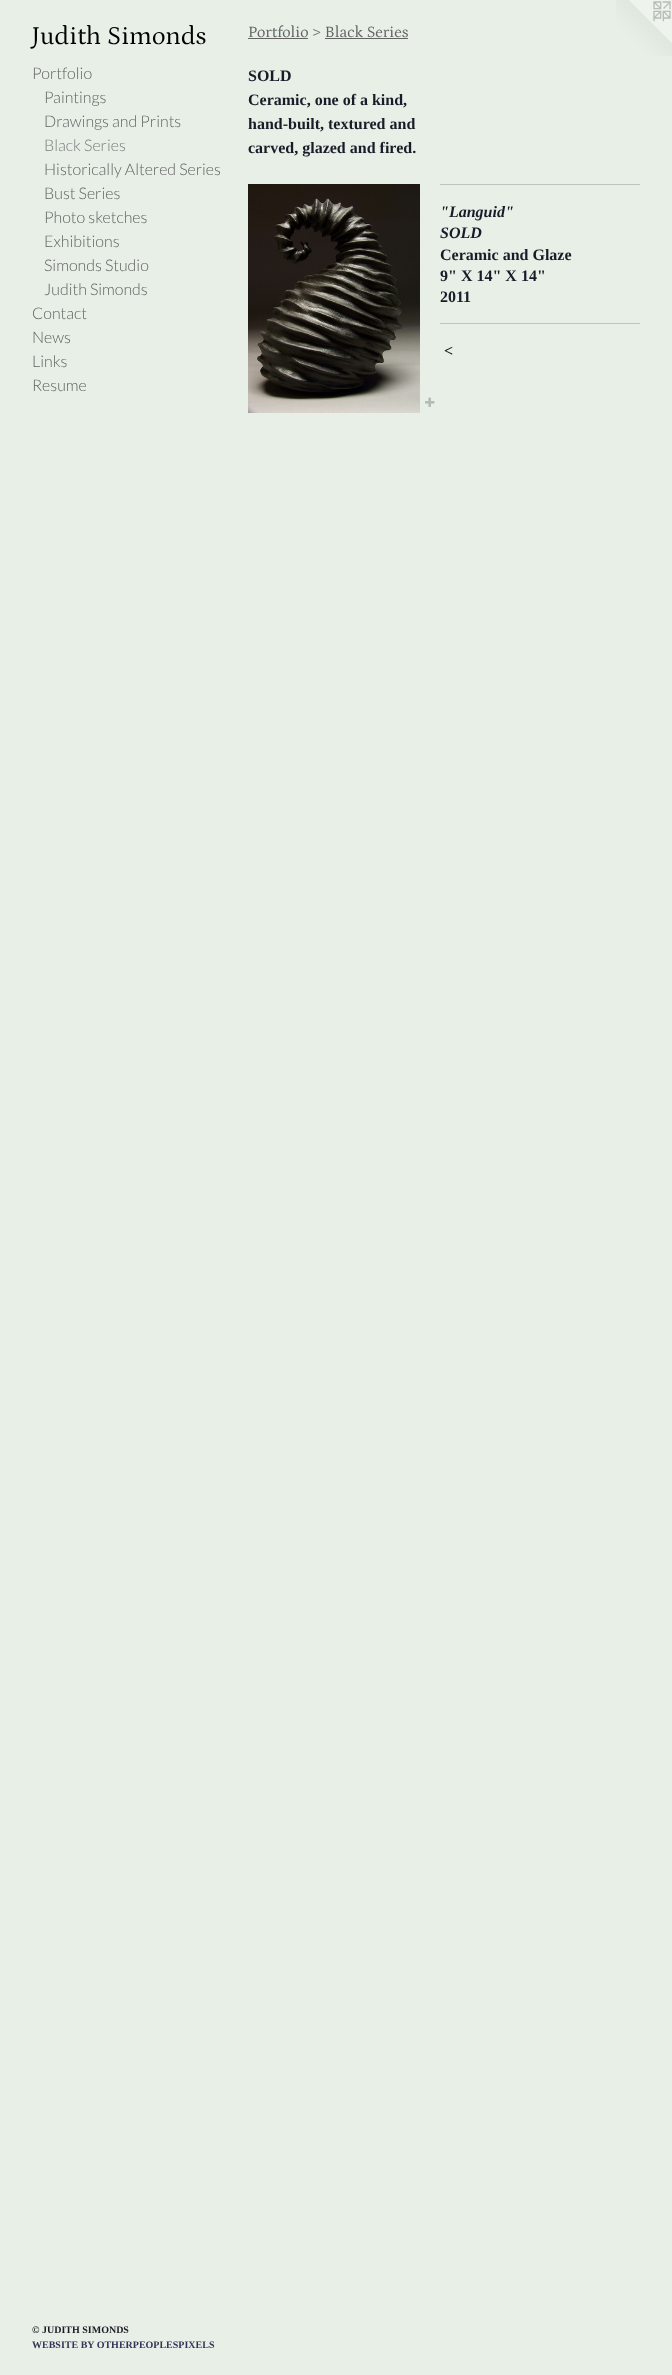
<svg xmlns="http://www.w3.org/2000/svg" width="672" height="2375">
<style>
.a{font:26px Petrona;fill:#000}
.b{font:300 16px Lato;fill:#636363}
.c{font:300 16px Lato;fill:#7d7d7d}
.d{font:bold 10px Liberation Serif;fill:#1b1b22}
.e{font:bold 10px Liberation Serif;fill:#313359}
.f{font:16px Petrona;fill:#636363}
.g{font:bold 16px Liberation Serif;fill:#1a1b28}
.h{font:italic bold 16px Liberation Serif;fill:#1a1b28}
.i{font:italic bold 16px Liberation Serif;letter-spacing:1px;fill:#1a1b28}
</style>
<rect width="100%" height="100%" fill="#e7efe6"/>
<path fill="#636363" d="M248 38h60v1H248z"/>
<path fill="#636363" d="M325 38h83v1H325z"/>
<image href="1.png" x="248" y="184" width="172" height="229"/>
<image href="2.png" x="425" y="397" width="10" height="10"/>
<path fill="#bec5c0" d="M440 184h200v1H440z"/>
<path fill="#bec5c0" d="M440 323h200v1H440z"/>
<image href="3.png" x="616" y="0" width="56" height="56"/>
<text class="a" x="32" y="44">Judith Simonds</text>
<text class="b" x="32" y="79">Portfolio</text>
<text class="b" x="44" y="103">Paintings</text>
<text class="b" x="44" y="127">Drawings and Prints</text>
<text class="c" x="44" y="151">Black Series</text>
<text class="b" x="44" y="175">Historically Altered Series</text>
<text class="b" x="44" y="199">Bust Series</text>
<text class="b" x="44" y="223">Photo sketches</text>
<text class="b" x="44" y="247">Exhibitions</text>
<text class="b" x="44" y="271">Simonds Studio</text>
<text class="b" x="44" y="295">Judith Simonds</text>
<text class="b" x="32" y="319">Contact</text>
<text class="b" x="32" y="343">News</text>
<text class="b" x="32" y="367">Links</text>
<text class="b" x="32" y="391">Resume</text>
<text class="d" x="32" y="2333">© JUDITH SIMONDS</text>
<text class="e" x="32" y="2348">WEBSITE BY OTHERPEOPLESPIXELS</text>
<text class="f" x="248" y="37">Portfolio &gt; Black Series</text>
<text class="g" x="248" y="81">SOLD</text>
<text class="g" x="248" y="105">Ceramic, one of a kind,</text>
<text class="g" x="248" y="129">hand-built, textured and</text>
<text class="g" x="248" y="153">carved, glazed and fired.</text>
<text class="h" x="440" y="217">"Languid"</text>
<text class="h" x="440" y="238">SOLD</text>
<text class="g" x="440" y="260">Ceramic and Glaze</text>
<text class="g" x="440" y="281">9" X 14" X 14"</text>
<text class="g" x="440" y="302">2011</text>
<text class="i" x="444" y="356">&lt;</text>
</svg>
